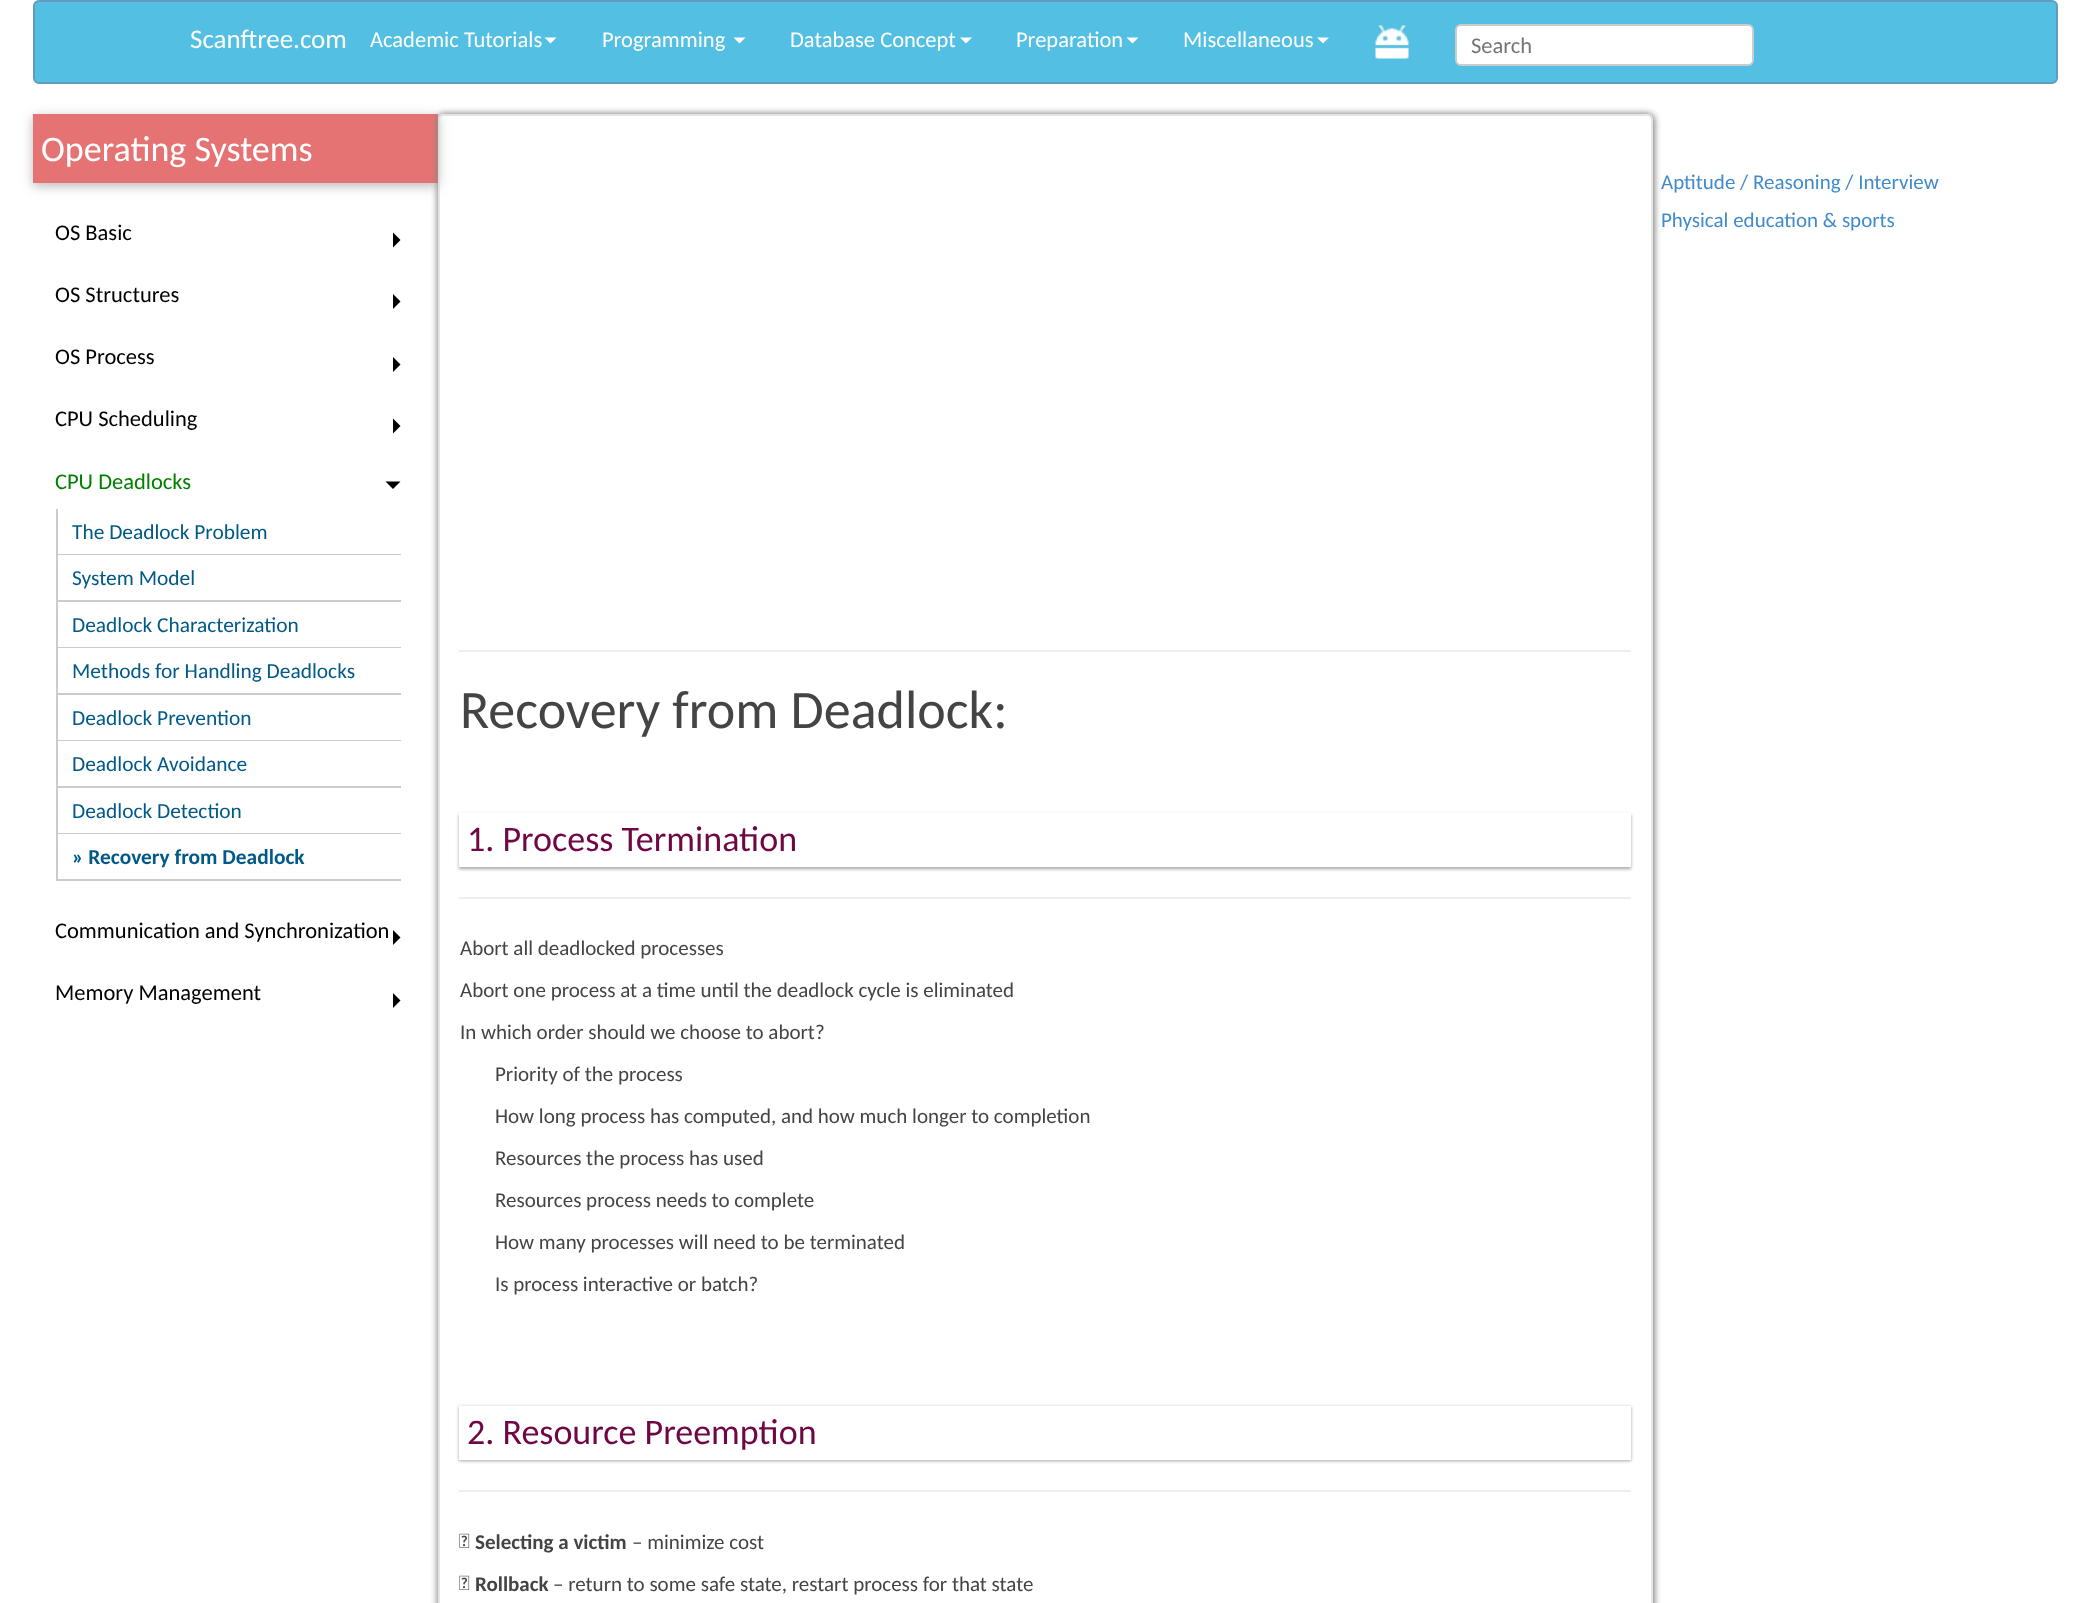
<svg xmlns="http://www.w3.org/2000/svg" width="2091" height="1603">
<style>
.a{font:27px Carlito;fill:#fff}
.b{font:22.5px Carlito;fill:#fff}
.c{font:22.5px Carlito;fill:#757575}
.d{font:36px Carlito;fill:#fff}
.e{font:22.5px Carlito;fill:#000}
.f{font:22.5px Carlito;fill:#008000}
.g{font:21.4px Carlito;fill:#005987}
.h{font:bold 21.4px Carlito;fill:#005987}
.i{font:54px Carlito;fill:#444}
.j{font:36px Carlito;fill:#6f0745}
.k{font:21px Carlito;fill:#444}
.l{font:bold 21px Carlito;fill:#444}
.m{font:21px Carlito;fill:#428bca}
</style>
<defs>
<clipPath id="clip1"><path d="M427 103h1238v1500h-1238zm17 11h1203c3.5 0 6 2.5 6 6v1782c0 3.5-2.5 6-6 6h-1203c-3.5 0-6-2.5-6-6v-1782c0-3.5 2.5-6 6-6z" clip-rule="evenodd"/></clipPath>
<clipPath id="clip2"><path d="M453 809h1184v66h-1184zm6 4h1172v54h-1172z" clip-rule="evenodd"/></clipPath>
<clipPath id="clip3"><path d="M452 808h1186v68h-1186zm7 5h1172v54h-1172z" clip-rule="evenodd"/></clipPath>
<clipPath id="clip4"><path d="M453 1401h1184v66h-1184zm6 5h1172v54h-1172z" clip-rule="evenodd"/></clipPath>
<clipPath id="clip5"><path d="M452 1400h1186v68h-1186zm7 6h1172v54h-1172z" clip-rule="evenodd"/></clipPath>
</defs>
<rect width="100%" height="100%" fill="#fff"/>
<rect fill="#53bfe2" stroke="#629bc0" stroke-width="2" x="34" y="1" width="2023" height="82" rx="5"/>
<path fill="#fff" d="M544.5 37.5h12l-6 6z"/>
<path fill="#fff" d="M733.5 37.5h12l-6 6z"/>
<path fill="#fff" d="M960 37.5h12l-6 6z"/>
<path fill="#fff" d="M1126.5 37.5h12l-6 6z"/>
<path fill="#fff" d="M1317 37.5h12l-6 6z"/>
<image href="1.png" x="1375" y="25" width="34" height="34"/>
<rect fill="#fff" stroke="#ccc" stroke-width="2" x="1456" y="25" width="297" height="40" rx="5"/>
<path fill="#0000001f" filter="blur(7.5px)" d="M33 117h405v69H33z"/>
<path fill="#00000029" filter="blur(4px)" d="M33 117h405v69H33z"/>
<path fill="#e57373" d="M33 114h405v69H33z"/>
<path fill="#000" d="M393 247.5v-15l7.5 7.5z"/>
<path fill="#000" d="M393 309v-15l7.5 7.5z"/>
<path fill="#000" d="M393 372v-15l7.5 7.5z"/>
<path fill="#000" d="M393 433.5v-15l7.5 7.5z"/>
<path fill="#000" d="M385.5 481.5h15l-7.5 7.5z"/>
<path fill="#ccc" d="M56 554h345v1H56z"/>
<path fill="#ccc" d="M56 509h2v46H56z"/>
<path fill="#ccc" d="M56 600h345v2H56z"/>
<path fill="#ccc" d="M56 555h2v47H56z"/>
<path fill="#ccc" d="M56 647h345v1H56z"/>
<path fill="#ccc" d="M56 602h2v46H56z"/>
<path fill="#ccc" d="M56 693h345v2H56z"/>
<path fill="#ccc" d="M56 648h2v47H56z"/>
<path fill="#ccc" d="M56 740h345v1H56z"/>
<path fill="#ccc" d="M56 695h2v46H56z"/>
<path fill="#ccc" d="M56 786h345v2H56z"/>
<path fill="#ccc" d="M56 741h2v47H56z"/>
<path fill="#ccc" d="M56 833h345v1H56z"/>
<path fill="#ccc" d="M56 788h2v46H56z"/>
<path fill="#ccc" d="M56 879h345v2H56z"/>
<path fill="#ccc" d="M56 834h2v47H56z"/>
<path fill="#000" d="M393 945v-15l7.5 7.5z"/>
<path fill="#000" d="M393 1008v-15l7.5 7.5z"/>
<g clip-path="url(#clip1)">
<rect fill="#888" filter="blur(3px)" x="437" y="113" width="1218" height="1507" rx="8"/>
</g>
<path fill="none" stroke="#ddd" stroke-width="1.5" d="M440.5 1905.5c-1-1-1.5-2-1.5-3.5v-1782c0-1.5 .5-2.5 1.5-3.5c1-1 2-1.5 3.5-1.5h1203c1.5 0 2.5 .5 3.5 1.5c1 1 1.5 2 1.5 3.5v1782c0 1.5-.5 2.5-1.5 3.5"/>
<path fill="#eee" d="M459 650h1172v2H459z"/>
<g clip-path="url(#clip2)">
<path fill="#0000003d" filter="blur(1.5px)" d="M459 815h1172v54H459z"/>
</g>
<g clip-path="url(#clip3)">
<path fill="#0000001f" filter="blur(2px)" d="M459 815h1172v54H459z"/>
</g>
<path fill="#eee" d="M459 897h1172v2H459z"/>
<g clip-path="url(#clip4)">
<path fill="#0000003d" filter="blur(1.5px)" d="M459 1407h1172v54H459z"/>
</g>
<g clip-path="url(#clip5)">
<path fill="#0000001f" filter="blur(2px)" d="M459 1407h1172v54H459z"/>
</g>
<path fill="#eee" d="M459 1490h1172v2H459z"/>
<image href="2.png" x="459" y="1533" width="11" height="15"/>
<image href="2.png" x="459" y="1575" width="11" height="15"/>
<text class="a" x="190" y="48">Scanftree.com</text>
<text class="b" x="370" y="47">Academic Tutorials</text>
<text class="b" x="602" y="47">Programming</text>
<text class="b" x="790" y="47">Database Concept</text>
<text class="b" x="1016" y="47">Preparation</text>
<text class="b" x="1183" y="47">Miscellaneous</text>
<text class="c" x="1471" y="53">Search</text>
<text class="d" x="41" y="161">Operating Systems</text>
<text class="e" x="55" y="240">OS Basic</text>
<text class="e" x="55" y="302">OS Structures</text>
<text class="e" x="55" y="364">OS Process</text>
<text class="e" x="55" y="426">CPU Scheduling</text>
<text class="f" x="55" y="489">CPU Deadlocks</text>
<text class="g" x="72" y="539">The Deadlock Problem</text>
<text class="g" x="72" y="585">System Model</text>
<text class="g" x="72" y="632">Deadlock Characterization</text>
<text class="g" x="72" y="678">Methods for Handling Deadlocks</text>
<text class="g" x="72" y="725">Deadlock Prevention</text>
<text class="g" x="72" y="771">Deadlock Avoidance</text>
<text class="g" x="72" y="818">Deadlock Detection</text>
<text class="h" x="72" y="864">» Recovery from Deadlock</text>
<text class="e" x="55" y="938">Communication and Synchronization</text>
<text class="e" x="55" y="1000">Memory Management</text>
<text class="i" x="460" y="728">Recovery from Deadlock:</text>
<text class="j" x="467" y="851">1. Process Termination</text>
<text class="k" x="460" y="955"> Abort all deadlocked processes</text>
<text class="k" x="460" y="997"> Abort one process at a time until the deadlock cycle is eliminated</text>
<text class="k" x="460" y="1039"> In which order should we choose to abort?</text>
<text class="k" x="495" y="1081"> Priority of the process</text>
<text class="k" x="495" y="1123"> How long process has computed, and how much longer to completion</text>
<text class="k" x="495" y="1165"> Resources the process has used</text>
<text class="k" x="495" y="1207"> Resources process needs to complete</text>
<text class="k" x="495" y="1249"> How many processes will need to be terminated</text>
<text class="k" x="495" y="1291"> Is process interactive or batch?</text>
<text class="j" x="467" y="1444">2. Resource Preemption</text>
<text class="l" x="475" y="1549">Selecting a victim</text>
<text class="k" x="632" y="1549">– minimize cost</text>
<text class="l" x="475" y="1591">Rollback</text>
<text class="k" x="553" y="1591">– return to some safe state, restart process for that state</text>
<text class="m" x="1661" y="189">Aptitude / Reasoning / Interview</text>
<text class="m" x="1661" y="227">Physical education &amp; sports</text>
</svg>
